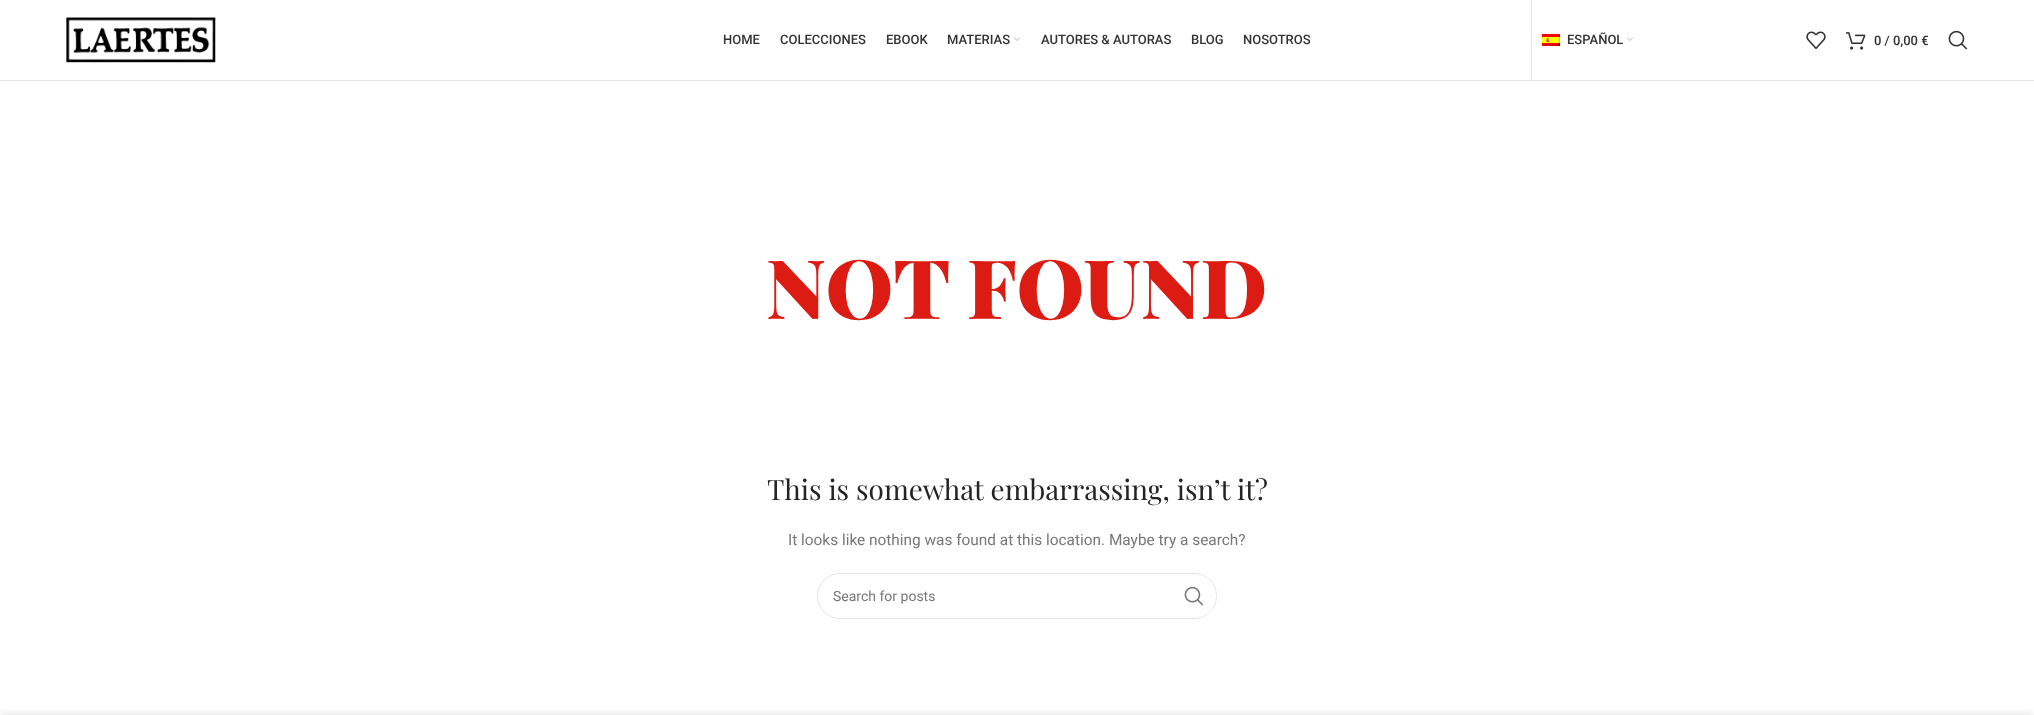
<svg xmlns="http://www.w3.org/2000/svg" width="2034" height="715">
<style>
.a{font:500 13px Roboto;fill:#333}
.b{font:900 82px Playfair Display;fill:#dc1b12}
.c{font:28px Playfair Display;fill:#242424}
.d{font:15.4px Roboto;fill:#777}
.e{font:14px Roboto;fill:#777}
</style>
<rect width="100%" height="100%" fill="#fff"/>
<path fill="#e6e6e6" d="M0 80h2034v1H0z"/>
<image href="1.png" x="66" y="17" width="150" height="46"/>
<image href="2.png" x="1014" y="37" width="6" height="4"/>
<path fill="#e4e4e4" d="M1531 0h1v80H1531z"/>
<image href="3.png" x="1542" y="34" width="18" height="12"/>
<image href="2.png" x="1627" y="37" width="6" height="4"/>
<image href="4.png" x="1806" y="31" width="20" height="18"/>
<image href="5.png" x="1846" y="32" width="20" height="18"/>
<image href="6.png" x="1948" y="30" width="20" height="20"/>
<rect fill="none" stroke="#e6e6e6" x="817.5" y="573.5" width="399" height="45" rx="22.5"/>
<image href="7.png" x="1184" y="586" width="20" height="20"/>
<path fill="#00000024" filter="blur(4.5px)" d="M0 715h2034v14H0z"/>
<text class="a" x="723" y="44">HOME</text>
<text class="a" x="780" y="44">COLECCIONES</text>
<text class="a" x="886" y="44">EBOOK</text>
<text class="a" x="947" y="44">MATERIAS</text>
<text class="a" x="1041" y="44">AUTORES &amp; AUTORAS</text>
<text class="a" x="1191" y="44">BLOG</text>
<text class="a" x="1243" y="44">NOSOTROS</text>
<text class="a" x="1567" y="44">ESPAÑOL</text>
<text class="a" x="1874" y="45">0 / 0,00 €</text>
<text class="b" x="766" y="319">NOT FOUND</text>
<text class="c" x="767" y="500">This is somewhat embarrassing, isn’t it?</text>
<text class="d" x="788" y="545">It looks like nothing was found at this location. Maybe try a search?</text>
<text class="e" x="833" y="601">Search for posts</text>
</svg>
